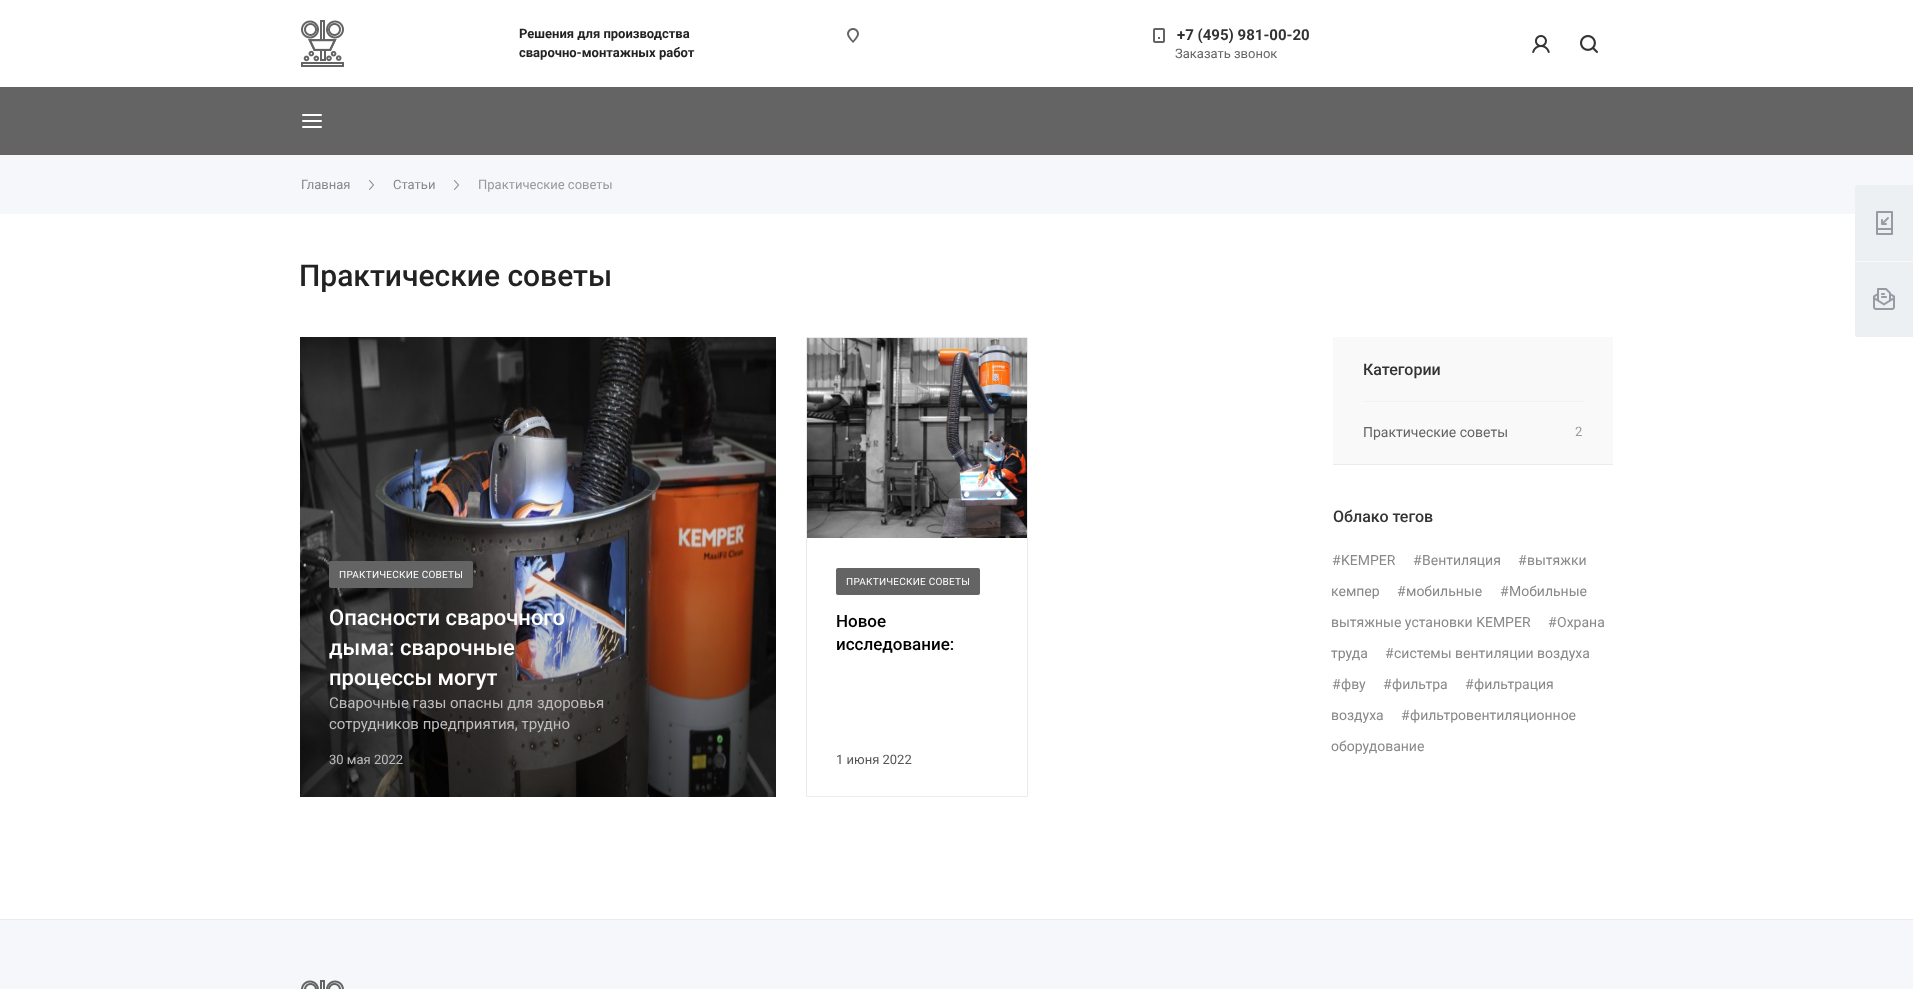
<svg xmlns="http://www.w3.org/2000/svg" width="1913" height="989">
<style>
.a{font:bold 13px Roboto;fill:#222}
.b{font:bold 15px Roboto;fill:#333}
.c{font:13px Roboto;fill:#646464}
.d{font:13px Roboto;fill:#888}
.e{font:13px Roboto;fill:#999}
.f{font:500 30px Roboto;fill:#222}
.g{font:10px Roboto;letter-spacing:0.25px;fill:#fff}
.h{font:500 22px Roboto;fill:#fff}
.i{font:15px Roboto;fill:#bdbdbd}
.j{font:13px Roboto;fill:#bdbdbd}
.k{font:500 17px Roboto;fill:#000}
.l{font:13px Roboto;fill:#555}
.m{font:500 16px Roboto;fill:#333}
.n{font:14px Roboto;fill:#646464}
.o{font:14px Roboto;fill:#888}
</style>
<defs>
<clipPath id="clip1"><path d="M329 603h279v90H329z"/></clipPath>
</defs>
<rect width="100%" height="100%" fill="#fff"/>
<image href="1.png" x="301" y="20" width="43" height="47"/>
<image href="2.png" x="847" y="28" width="12" height="15"/>
<image href="3.png" x="1153" y="28" width="12" height="15"/>
<image href="4.png" x="1532" y="35" width="18" height="18"/>
<image href="5.png" x="1580" y="35" width="18" height="18"/>
<path fill="#646464" d="M0 87h1913v68H0z"/>
<rect fill="#fff" x="302" y="114" width="20" height="2" rx="1"/>
<rect fill="#fff" x="302" y="120" width="20" height="2" rx="1"/>
<rect fill="#fff" x="302" y="126" width="20" height="2" rx="1"/>
<path fill="#f6f7fa" d="M0 155h1913v59H0z"/>
<image href="6.png" x="369" y="180" width="5" height="10"/>
<image href="6.png" x="454" y="180" width="5" height="10"/>
<image href="7.png" x="300" y="337" width="476" height="460"/>
<rect fill="#646464" x="329" y="561" width="144" height="27" rx="2"/>
<path fill="none" stroke="#ebebef" d="M806.5 337.5h221v459H806.5z"/>
<image href="8.png" x="807" y="338" width="220" height="200"/>
<rect fill="#646464" x="836" y="568" width="144" height="27" rx="2"/>
<path fill="#f9f9f9" d="M1333 337h280v127H1333z"/>
<path fill="#ebebef" d="M1333 464h280v1H1333z"/>
<path fill="#f1f1f1" d="M1363 401h220v1H1363z"/>
<path fill="#edf0f3" d="M1857 185h56v76h-58v-74c0-1 1-2 2-2z"/>
<image href="9.png" x="1876" y="211" width="17" height="24"/>
<path fill="#edf0f3" d="M1855 261h58v76h-56c-1 0-2-1-2-2z"/>
<path fill="#f6f8f9" d="M1855 261h58v1H1855z"/>
<image href="10.png" x="1873" y="288" width="22" height="22"/>
<path fill="#f6f7fa" d="M0 920h1913v69H0z"/>
<path fill="#ebebef" d="M0 919h1913v1H0z"/>
<image href="11.png" x="301" y="980" width="43" height="9"/>
<text class="a" x="519" y="38">Решения для производства</text>
<text class="a" x="519" y="57">сварочно-монтажных работ</text>
<text class="b" x="1177" y="40">+7 (495) 981-00-20</text>
<text class="c" x="1175" y="58">Заказать звонок</text>
<text class="d" x="301" y="189">Главная</text>
<text class="d" x="393" y="189">Статьи</text>
<text class="e" x="478" y="189">Практические советы</text>
<text class="f" x="299" y="286">Практические советы</text>
<text class="g" x="339" y="578">ПРАКТИЧЕСКИЕ СОВЕТЫ</text>
<text class="h" x="329" y="625">Опасности сварочного</text>
<g clip-path="url(#clip1)">
<text class="h" x="329" y="655">дыма: сварочные</text>
</g>
<text class="h" x="329" y="685">процессы могут</text>
<text class="i" x="329" y="708">Сварочные газы опасны для здоровья</text>
<text class="i" x="329" y="729">сотрудников предприятия, трудно</text>
<text class="j" x="329" y="764">30 мая 2022</text>
<text class="g" x="846" y="585">ПРАКТИЧЕСКИЕ СОВЕТЫ</text>
<text class="k" x="836" y="627">Новое</text>
<text class="k" x="836" y="650">исследование:</text>
<text class="l" x="836" y="764">1 июня 2022</text>
<text class="m" x="1363" y="375">Категории</text>
<text class="n" x="1363" y="437">Практические советы</text>
<text class="e" x="1575" y="436">2</text>
<text class="m" x="1333" y="522">Облако тегов</text>
<text class="o" x="1518" y="565">#</text>
<text class="o" x="1527" y="565">вытяжки</text>
<text class="o" x="1331" y="596">кемпер</text>
<text class="o" x="1332" y="565">#</text>
<text class="o" x="1341" y="565">KEMPER</text>
<text class="o" x="1413" y="565">#</text>
<text class="o" x="1422" y="565">Вентиляция</text>
<text class="o" x="1500" y="596">#</text>
<text class="o" x="1509" y="596">Мобильные</text>
<text class="o" x="1331" y="627">вытяжные установки KEMPER</text>
<text class="o" x="1397" y="596">#</text>
<text class="o" x="1406" y="596">мобильные</text>
<text class="o" x="1548" y="627">#</text>
<text class="o" x="1557" y="627">Охрана</text>
<text class="o" x="1331" y="658">труда</text>
<text class="o" x="1385" y="658">#</text>
<text class="o" x="1394" y="658">системы вентиляции воздуха</text>
<text class="o" x="1465" y="689">#</text>
<text class="o" x="1474" y="689">фильтрация</text>
<text class="o" x="1331" y="720">воздуха</text>
<text class="o" x="1332" y="689">#</text>
<text class="o" x="1341" y="689">фву</text>
<text class="o" x="1383" y="689">#</text>
<text class="o" x="1392" y="689">фильтра</text>
<text class="o" x="1401" y="720">#</text>
<text class="o" x="1410" y="720">фильтровентиляционное</text>
<text class="o" x="1331" y="751">оборудование</text>
</svg>
